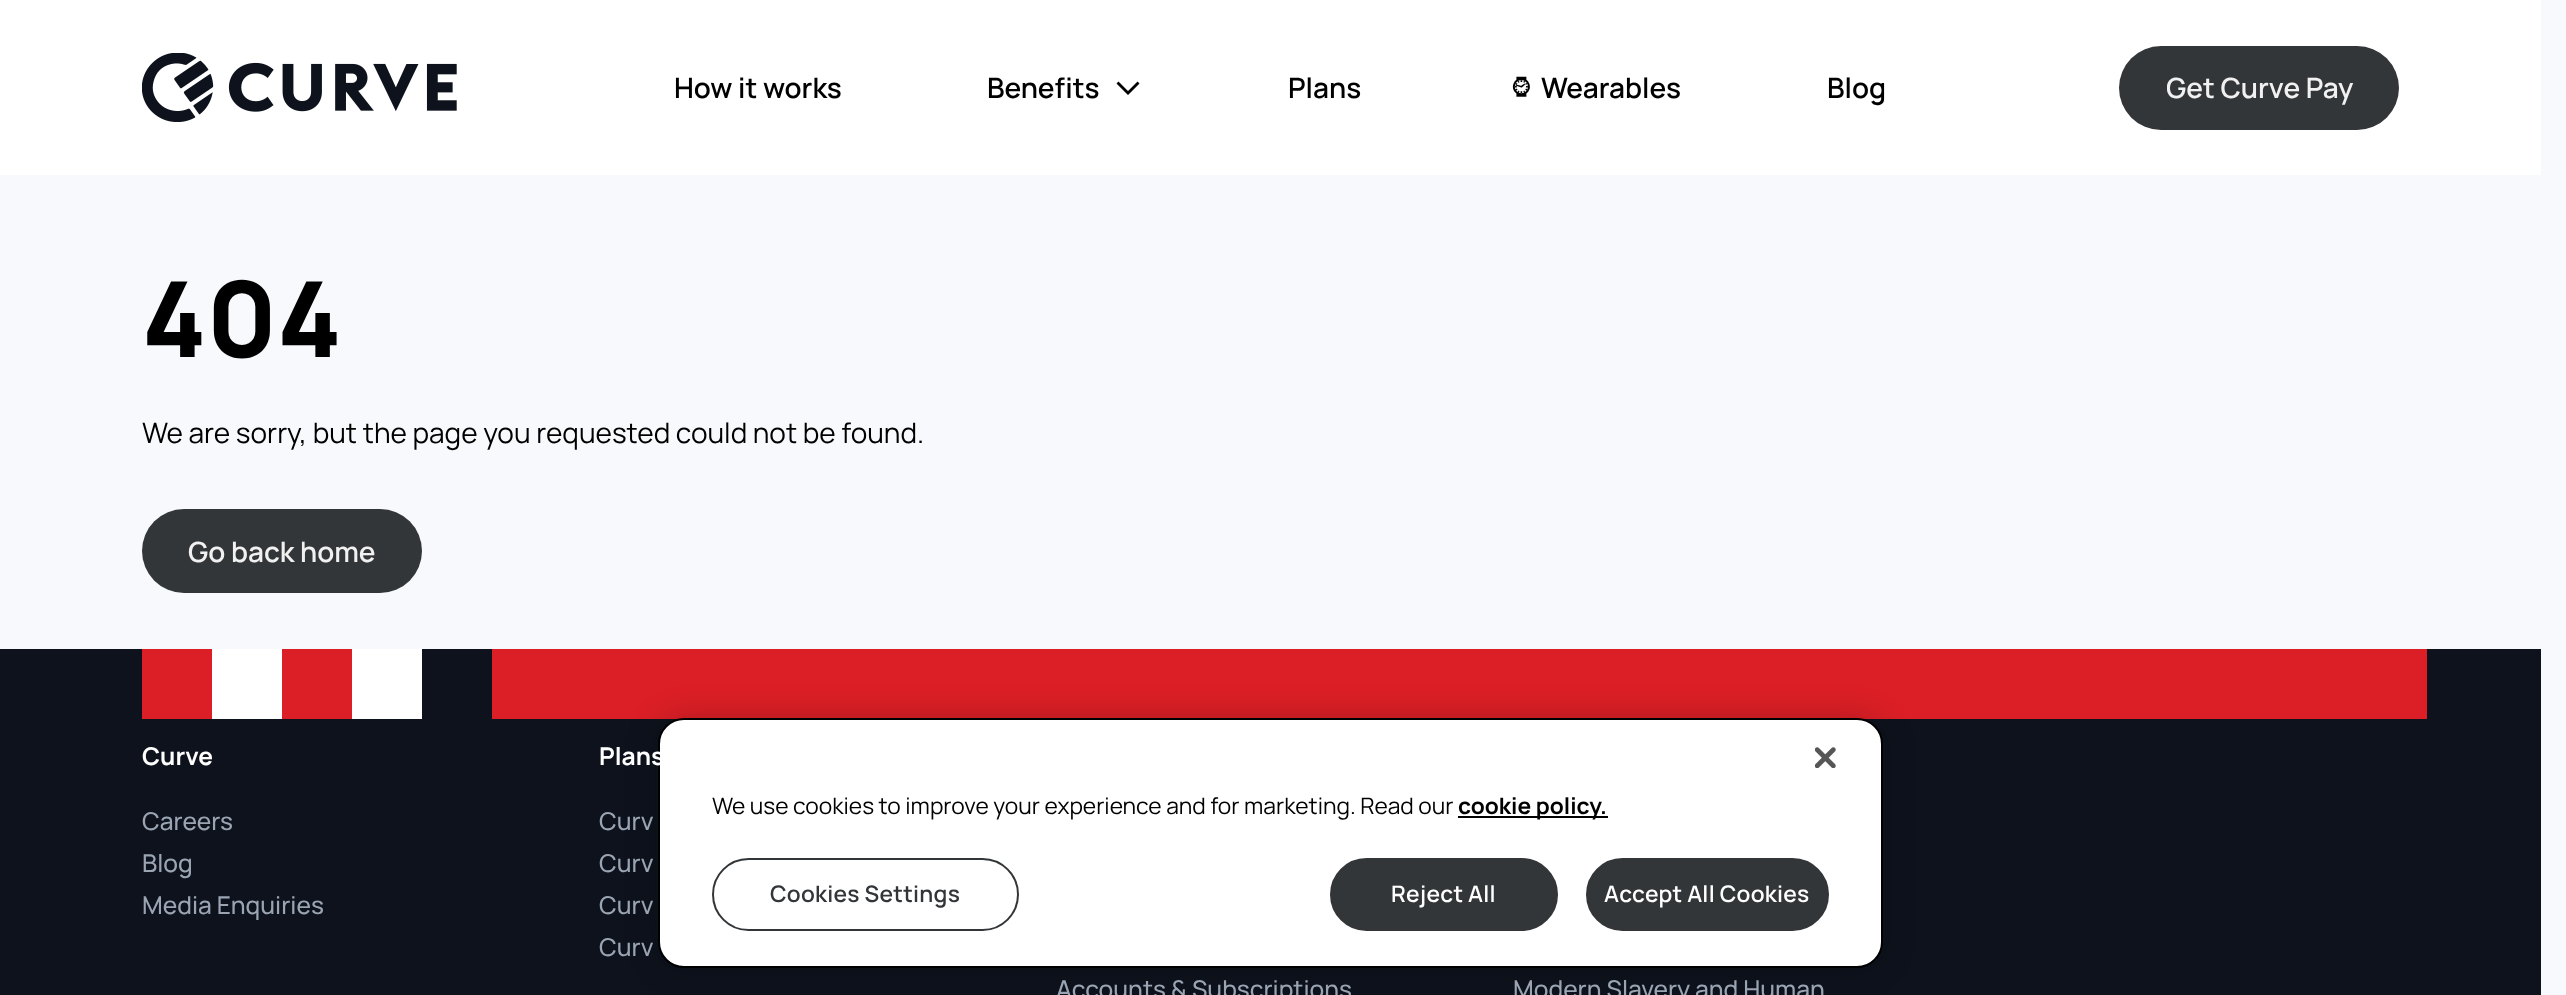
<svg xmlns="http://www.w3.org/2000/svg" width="2566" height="995">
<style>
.a{font:600 28px Manrope;fill:#000}
.b{font:bold 28px Sawarabi Gothic;fill:#000}
.c{font:600 28px Manrope;fill:#f1f1f1}
.d{font:800 105px Manrope;fill:#000}
.e{font:28px Manrope;fill:#000}
.f{font:bold 24.5px Manrope;fill:#fff}
.g{font:500 24.5px Manrope;fill:#9aa4b2}
.h{font:22.75px Manrope;fill:#000}
.i{font:bold 22.75px Manrope;fill:#000}
.j{font:600 22.75px Manrope;letter-spacing:0.25px;fill:#333638}
.k{font:600 22.75px Manrope;letter-spacing:0.25px;fill:#fff}
</style>
<defs>
<clipPath id="clip1"><path d="M2167 70h187v35H2167z"/></clipPath>
</defs>
<rect width="100%" height="100%" fill="#f7f9fc"/>
<path fill="#fff" d="M0 0h2541v175H0z"/>
<image href="1.png" x="142" y="53" width="315" height="69"/>
<path fill="#000" d="M1118.5 81.5l-2 2l11.5 11.5l11.5-11.5l-2-2l-9.5 9.5z"/>
<rect fill="#333638" x="2119" y="46" width="280" height="84" rx="42"/>
<rect fill="#333638" x="142" y="509" width="280" height="84" rx="42"/>
<path fill="#0d121c" d="M0 649h2541v346H0z"/>
<path fill="#dc1f26" d="M142 649h2285v70H142z"/>
<path fill="#fff" d="M212 649h70v70H212z"/>
<path fill="#fff" d="M352 649h70v70H352z"/>
<path fill="#0d121c" d="M422 649h70v70H422z"/>
<rect fill="#00000033" filter="blur(16px)" x="658" y="718" width="1225" height="250" rx="26"/>
<rect fill="#fff" stroke="#000" stroke-width="2" x="659" y="719" width="1223" height="248" rx="25"/>
<image href="2.png" x="1815" y="747" width="21" height="21"/>
<path fill="#000" d="M1458 816h150v2H1458z"/>
<rect fill="none" stroke="#333638" stroke-width="2" x="713" y="859" width="305" height="71" rx="35.5"/>
<rect fill="#333638" stroke="#333638" stroke-width="2" x="1331" y="859" width="226" height="71" rx="35.5"/>
<rect fill="#333638" stroke="#333638" stroke-width="2" x="1587" y="859" width="241" height="71" rx="35.5"/>
<text class="a" x="674" y="98">How it works</text>
<text class="a" x="987" y="98">Benefits</text>
<text class="a" x="1288" y="98">Plans</text>
<text class="b" x="1507" y="98">⌚︎</text>
<text class="a" x="1541" y="98">Wearables</text>
<text class="a" x="1827" y="98">Blog</text>
<g clip-path="url(#clip1)">
<text class="c" x="2166" y="98">Get Curve Pay</text>
</g>
<text class="d" x="142" y="357">404</text>
<text class="e" x="142" y="443">We are sorry, but the page you requested could not be found.</text>
<text class="c" x="188" y="562">Go back home</text>
<text class="f" x="142" y="765">Curve</text>
<text class="g" x="142" y="830">Careers</text>
<text class="g" x="142" y="872">Blog</text>
<text class="g" x="142" y="914">Media Enquiries</text>
<text class="f" x="599" y="765">Plans</text>
<text class="g" x="599" y="830">Curv</text>
<text class="g" x="599" y="872">Curv</text>
<text class="g" x="599" y="914">Curv</text>
<text class="g" x="599" y="956">Curv</text>
<text class="g" x="1056" y="998">Accounts &amp; Subscriptions</text>
<text class="g" x="1513" y="998">Modern Slavery and Human</text>
<text class="h" x="712" y="814">We use cookies to improve your experience and for marketing. Read our</text>
<text class="i" x="1458" y="814">cookie policy.</text>
<text class="j" x="770" y="902">Cookies Settings</text>
<text class="k" x="1391" y="902">Reject All</text>
<text class="k" x="1604" y="902">Accept All Cookies</text>
</svg>
